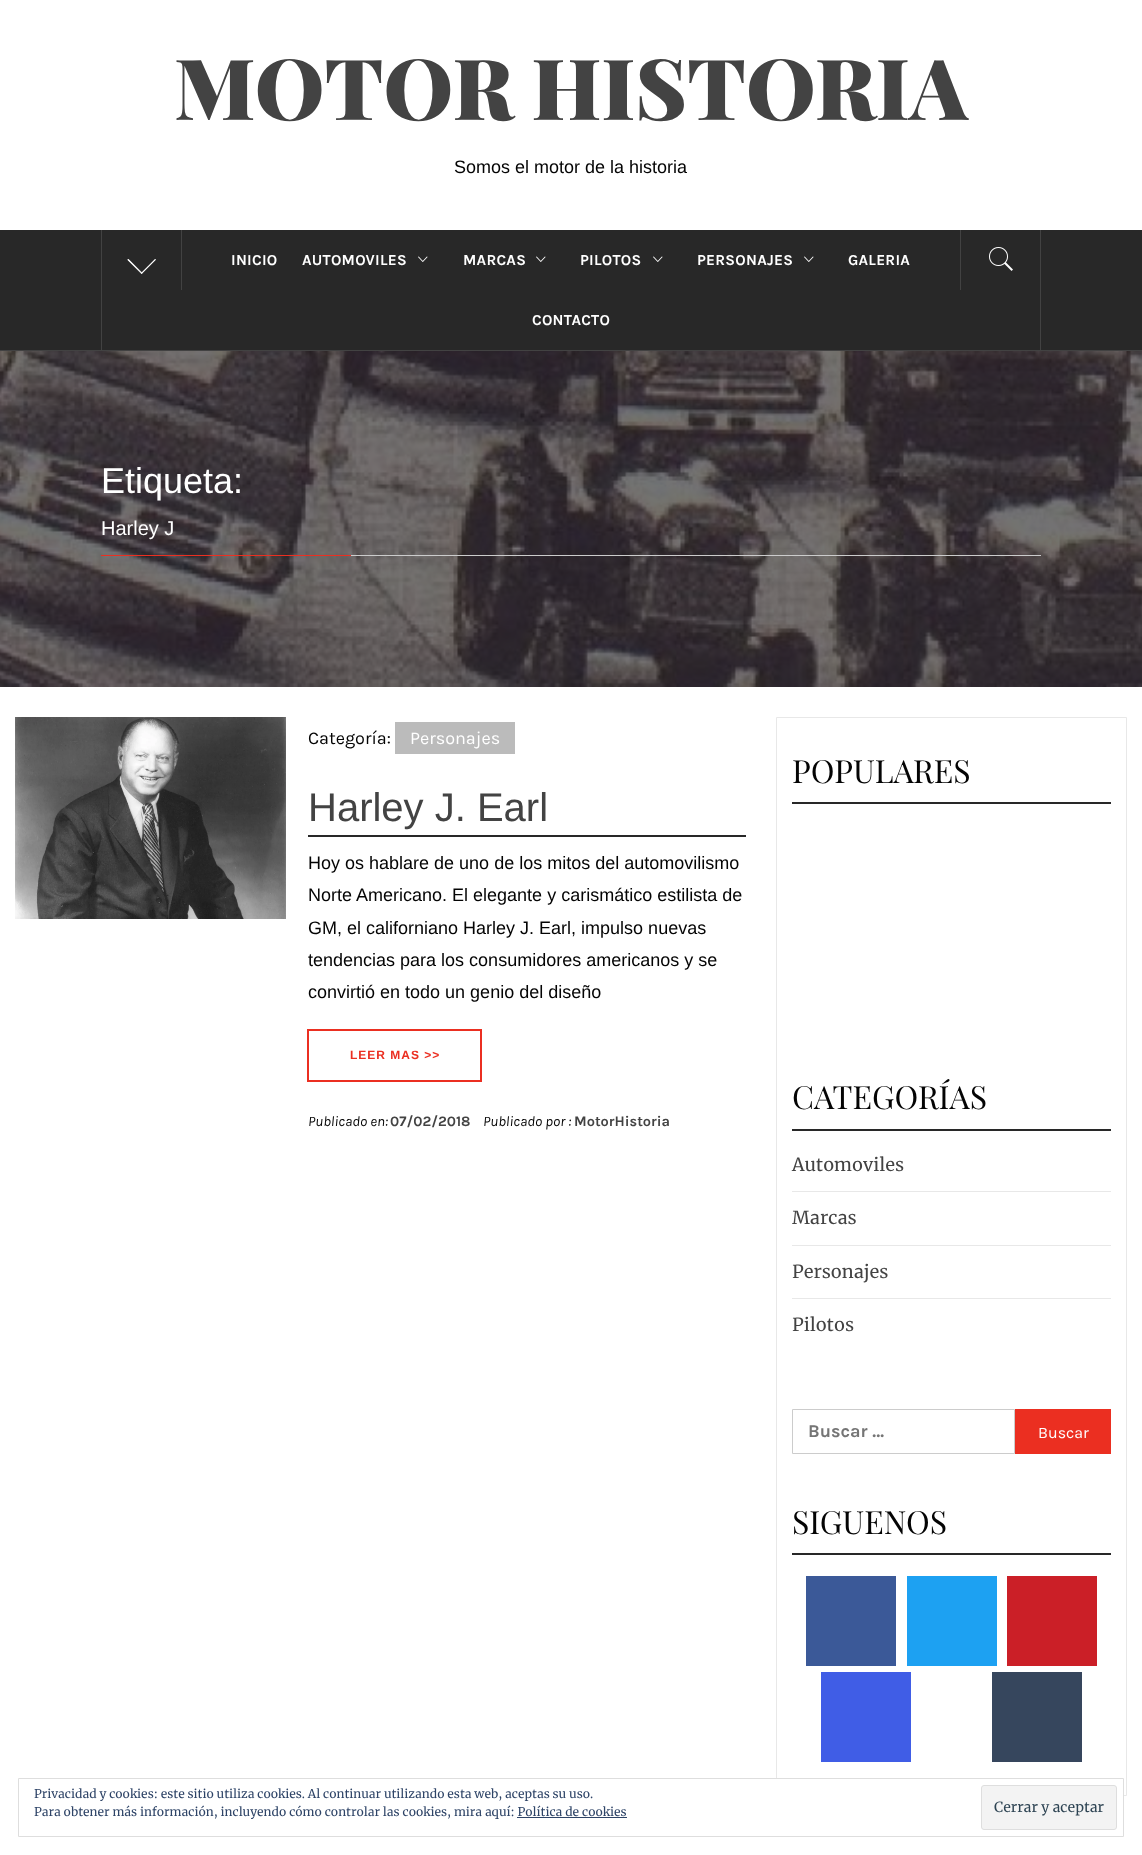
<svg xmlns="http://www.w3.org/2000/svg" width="1142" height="1855">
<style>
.a{font:900 84.4px Playfair Display;fill:#434343}
.b{font:18px Liberation Sans;fill:#040404}
.c{font:bold 15.25px Karla;letter-spacing:0.25px;fill:#fff}
.d{font:36px Liberation Sans;fill:#fff}
.e{font:20px Liberation Sans;fill:#fff}
.f{font:18px Karla;fill:#040404}
.g{font:18px Karla;fill:#fff}
.h{font:40px Liberation Sans;fill:#434343}
.i{font:bold 12px Liberation Sans;letter-spacing:1px;fill:#eb2f21}
.j{font:italic 14.5px Karla;fill:#040404}
.k{font:bold 14.5px Karla;fill:#434343}
.l{font:32px Playfair Display;fill:#040404}
.m{font:18px Merriweather;fill:#434343}
.n{font:bold 18px Karla;fill:#757575}
.o{font:16px Karla;fill:#fff}
.p{font:12px Merriweather;fill:#2e4467}
.q{font:14px Merriweather;fill:#2e4453}
</style>
<rect width="100%" height="100%" fill="#fff"/>
<path fill="#282828" d="M0 230h1142v120H0z"/>
<path fill="#424242" d="M0 350h1142v1H0z"/>
<path fill="#424242" d="M1040 230h1v120H1040z"/>
<path fill="#424242" d="M101 230h1v120H101z"/>
<path fill="#424242" d="M181 230h1v60H181z"/>
<path fill="#fff" d="M155 259l.5 1l-14 14l-.5-.5z"/>
<path fill="#fff" d="M128 259l14 14.5l-.5 .5l-14-14z"/>
<path fill="#fff" d="M155.5 259l.5 .5l-14 14l-1-.5z"/>
<path fill="#fff" d="M128.5 259l14 14l-.5 .5l-14.5-14z"/>
<image href="1.png" x="418" y="256" width="10" height="6"/>
<image href="1.png" x="536" y="256" width="10" height="6"/>
<image href="1.png" x="653" y="256" width="10" height="6"/>
<image href="1.png" x="804" y="256" width="10" height="6"/>
<path fill="#424242" d="M960 230h1v60H960z"/>
<image href="2.png" x="989" y="247" width="24" height="24"/>
<image href="3.png" x="0" y="351" width="1142" height="336"/>
<path fill="#ccc" d="M351 555h690v1H351z"/>
<path fill="#eb2f21" d="M101 555h250v1H101z"/>
<image href="4.png" x="15" y="717" width="271" height="202"/>
<path fill="#bbb" d="M395 722h120v32H395z"/>
<path fill="#282828" d="M308 835h438v2H308z"/>
<path fill="none" stroke="#eb2f21" stroke-width="2" d="M308 1030h173v51H308z"/>
<path fill="none" stroke="#e8e8e8" d="M776.5 717.5h350v1078H776.5z"/>
<path fill="#282828" d="M792 802h319v2H792z"/>
<path fill="#282828" d="M792 1129h319v2H792z"/>
<path fill="#e8e8e8" d="M792 1191h319v1H792z"/>
<path fill="#e8e8e8" d="M792 1245h319v1H792z"/>
<path fill="#e8e8e8" d="M792 1298h319v1H792z"/>
<path fill="none" stroke="#ccc" d="M792.5 1409.5h222v44H792.5z"/>
<path fill="#eb2f21" d="M1015 1409h96v45H1015z"/>
<path fill="#282828" d="M792 1553h319v2H792z"/>
<path fill="#3b5998" d="M806 1576h90v90H806z"/>
<path fill="#1da1f2" d="M907 1576h90v90H907z"/>
<path fill="#cb1f27" d="M1007 1576h90v90H1007z"/>
<path fill="#405de6" d="M821 1672h90v90H821z"/>
<path fill="#36465d" d="M992 1672h90v90H992z"/>
<path fill="#fff" d="M776 1779h347v17H776z"/>
<path fill="none" stroke="#dedede" d="M18.5 1778.5h1105v58H18.5z"/>
<rect fill="#f3f3f3" stroke="#dedede" x="981.5" y="1785.5" width="135" height="44" rx="2.5"/>
<path fill="#2e4467" d="M517 1817h110v1H517z"/>
<text class="a" x="174" y="120">MOTOR HISTORIA</text>
<text class="b" x="454" y="173">Somos el motor de la historia</text>
<text class="c" x="231" y="265">INICIO</text>
<text class="c" x="302" y="265">AUTOMOVILES</text>
<text class="c" x="463" y="265">MARCAS</text>
<text class="c" x="580" y="265">PILOTOS</text>
<text class="c" x="697" y="265">PERSONAJES</text>
<text class="c" x="848" y="265">GALERIA</text>
<text class="c" x="532" y="325">CONTACTO</text>
<text class="d" x="101" y="493">Etiqueta:</text>
<text class="e" x="101" y="535">Harley J</text>
<text class="f" x="308" y="744">Categoría:</text>
<text class="g" x="410" y="744">Personajes</text>
<text class="h" x="308" y="821">Harley J. Earl</text>
<text class="b" x="308" y="869">Hoy os hablare de uno de los mitos del automovilismo</text>
<text class="b" x="308" y="901">Norte Americano. El elegante y carismático estilista de</text>
<text class="b" x="308" y="934">GM, el californiano Harley J. Earl, impulso nuevas</text>
<text class="b" x="308" y="966">tendencias para los consumidores americanos y se</text>
<text class="b" x="308" y="998">convirtió en todo un genio del diseño</text>
<text class="i" x="350" y="1059">LEER MAS &gt;&gt;</text>
<text class="j" x="308" y="1126">Publicado en:</text>
<text class="k" x="390" y="1126">07/02/2018</text>
<text class="j" x="483" y="1126">Publicado por :</text>
<text class="k" x="574" y="1126">MotorHistoria</text>
<text class="l" x="792" y="783">POPULARES</text>
<text class="l" x="792" y="1109">CATEGORÍAS</text>
<text class="m" x="792" y="1171">Automoviles</text>
<text class="m" x="792" y="1224">Marcas</text>
<text class="m" x="792" y="1278">Personajes</text>
<text class="m" x="792" y="1331">Pilotos</text>
<text class="n" x="808" y="1437">Buscar …</text>
<text class="o" x="1038" y="1438">Buscar</text>
<text class="l" x="792" y="1534">SIGUENOS</text>
<text class="p" x="34" y="1798">Privacidad y cookies: este sitio utiliza cookies. Al continuar utilizando esta web, aceptas su uso.</text>
<text class="p" x="34" y="1816">Para obtener más información, incluyendo cómo controlar las cookies, mira aquí: Política de cookies</text>
<text class="q" x="994" y="1812">Cerrar y aceptar</text>
</svg>
